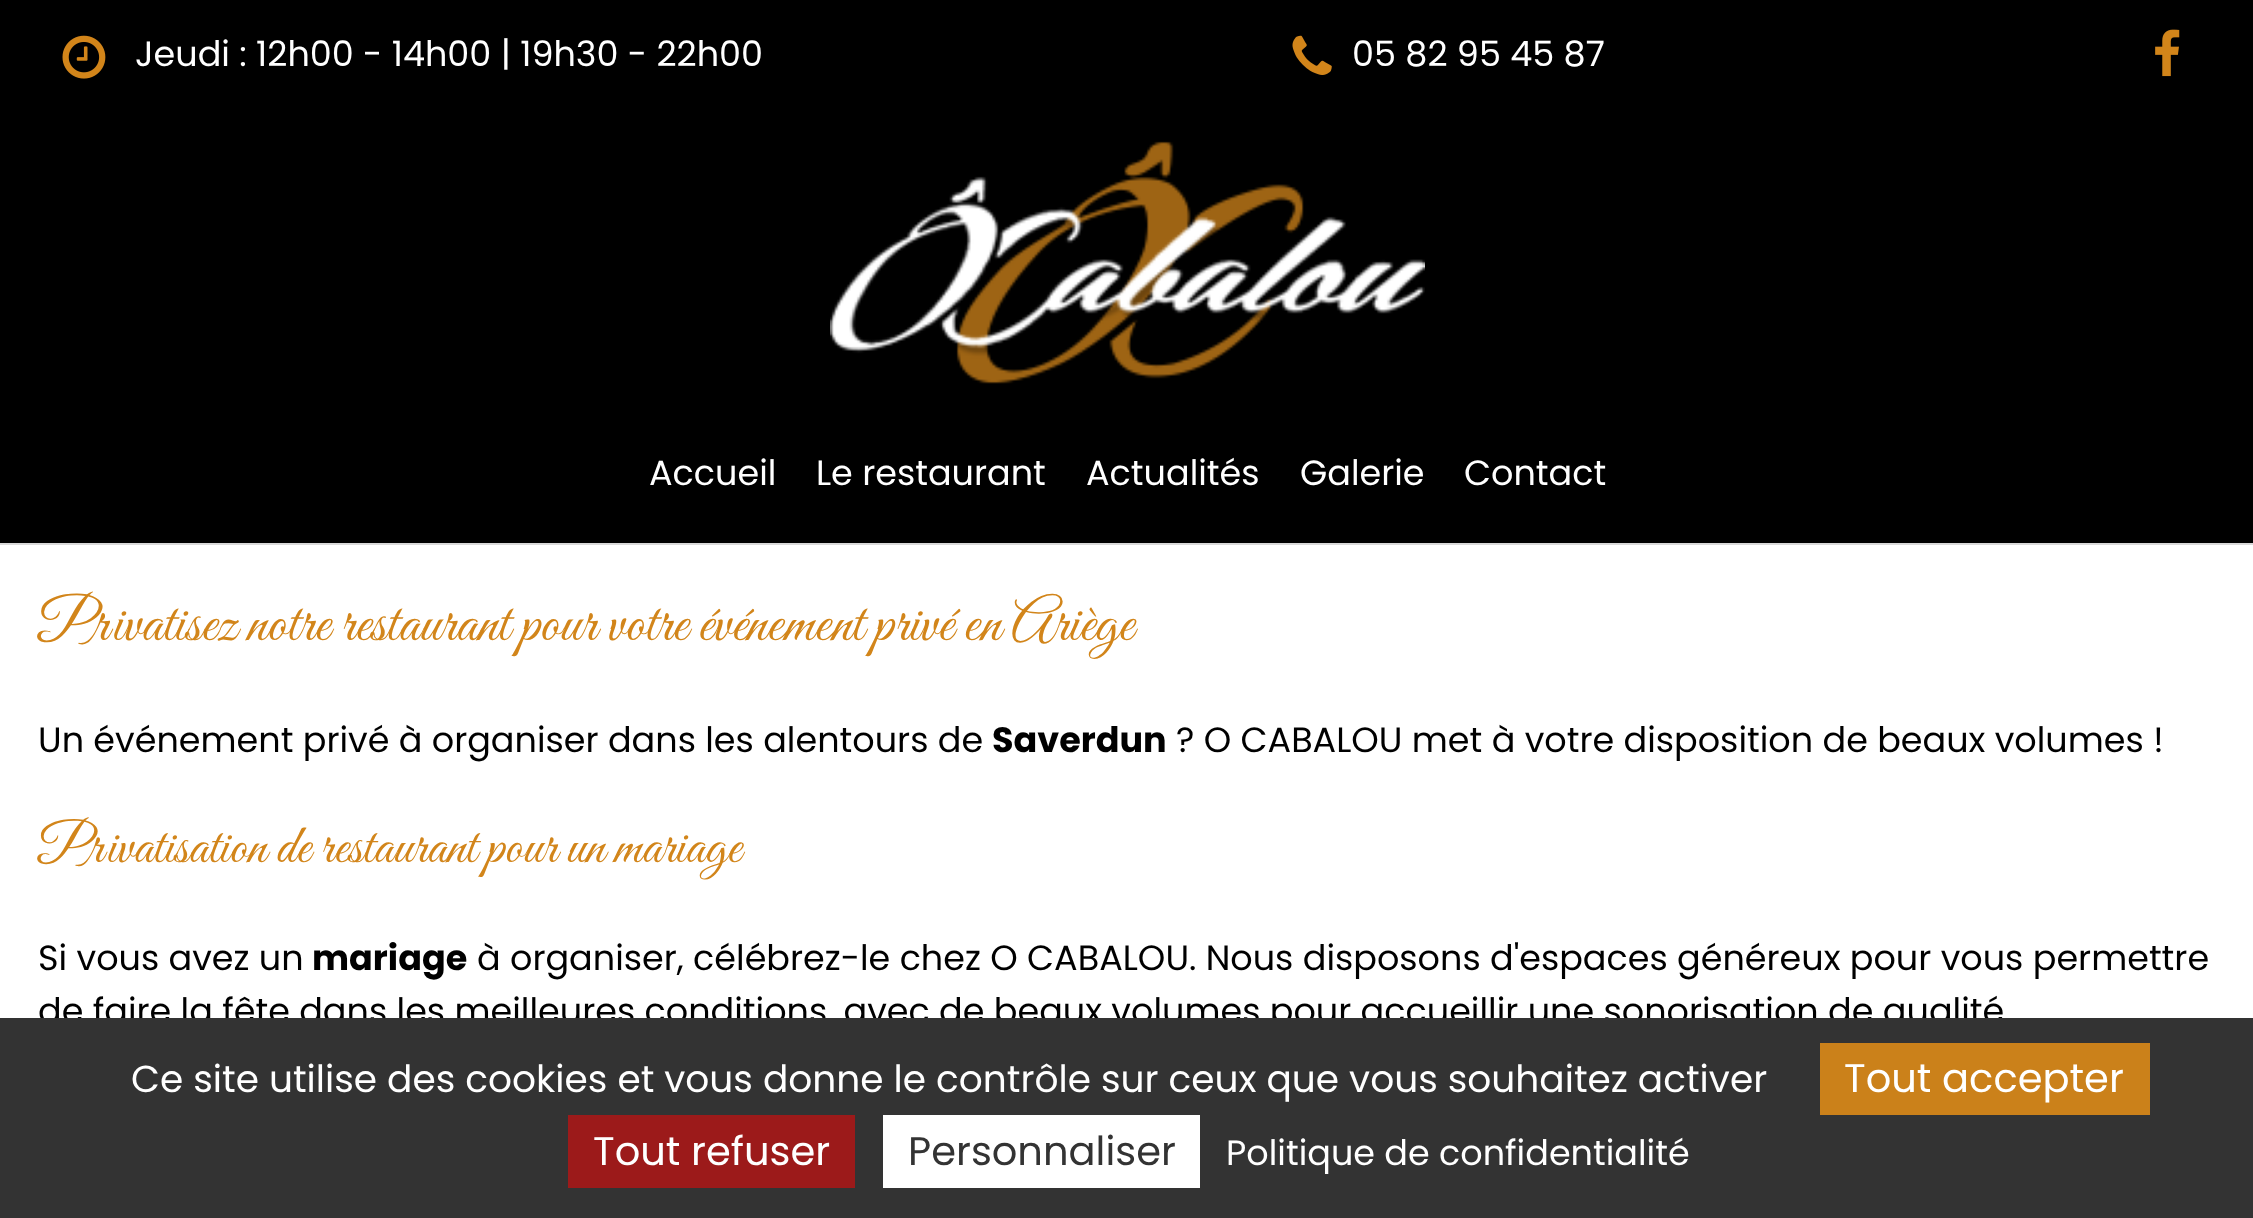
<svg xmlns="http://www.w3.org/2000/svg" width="2253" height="1218">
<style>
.a{font:35px Poppins;fill:#fff}
.b{font:59.5px Great Vibes;fill:#d2851a}
.c{font:35px Poppins;fill:#000}
.d{font:bold 35px Poppins;fill:#000}
.e{font:55px Great Vibes;fill:#d2851a}
.f{font:37.5px Poppins;fill:#fff}
.g{font:40px Poppins;fill:#fff}
.h{font:40px Poppins;fill:#333}
</style>
<rect width="100%" height="100%" fill="#fff"/>
<path fill="#d9d9d9" d="M0 543h2253v2H0z"/>
<path fill="#000" d="M0 0h2253v543H0z"/>
<image href="1.png" x="62" y="35" width="44" height="44"/>
<image href="2.png" x="1292" y="35" width="40" height="40"/>
<image href="3.png" x="2155" y="29" width="25" height="48"/>
<image href="4.png" x="830" y="141" width="595" height="243"/>
<text class="a" x="135" y="66">Jeudi : 12h00 - 14h00 | 19h30 - 22h00</text>
<text class="a" x="1352" y="66">05 82 95 45 87</text>
<text class="a" x="649" y="485">Accueil</text>
<text class="a" x="816" y="485">Le restaurant</text>
<text class="a" x="1086" y="485">Actualités</text>
<text class="a" x="1300" y="485">Galerie</text>
<text class="a" x="1464" y="485">Contact</text>
<text class="b" x="38" y="640">Privatisez notre restaurant pour votre événement privé en Ariège</text>
<text class="c" x="38" y="752">Un événement privé à organiser dans les alentours de</text>
<text class="d" x="992" y="752">Saverdun</text>
<text class="c" x="1176" y="752">? O CABALOU met à votre disposition de beaux volumes !</text>
<text class="e" x="38" y="862">Privatisation de restaurant pour un mariage</text>
<text class="c" x="38" y="970">Si vous avez un</text>
<text class="d" x="312" y="970">mariage</text>
<text class="c" x="477" y="970">à organiser, célébrez-le chez O CABALOU. Nous disposons d'espaces généreux pour vous permettre</text>
<text class="c" x="38" y="1023">de faire la fête dans les meilleures conditions, avec de beaux volumes pour accueillir une sonorisation de qualité</text>
<path fill="#333" d="M0 1018h2253v200H0z"/>
<text class="f" x="131" y="1092">Ce site utilise des cookies et vous donne le contrôle sur ceux que vous souhaitez activer</text>
<path fill="#cb811a" d="M1820 1043h330v72H1820z"/>
<text class="g" x="1844" y="1092">Tout accepter</text>
<path fill="#9c1a1a" d="M568 1115h287v73H568z"/>
<text class="g" x="593" y="1165">Tout refuser</text>
<path fill="#fff" d="M883 1115h317v73H883z"/>
<text class="h" x="908" y="1165">Personnaliser</text>
<text class="a" x="1226" y="1165">Politique de confidentialité</text>
</svg>
